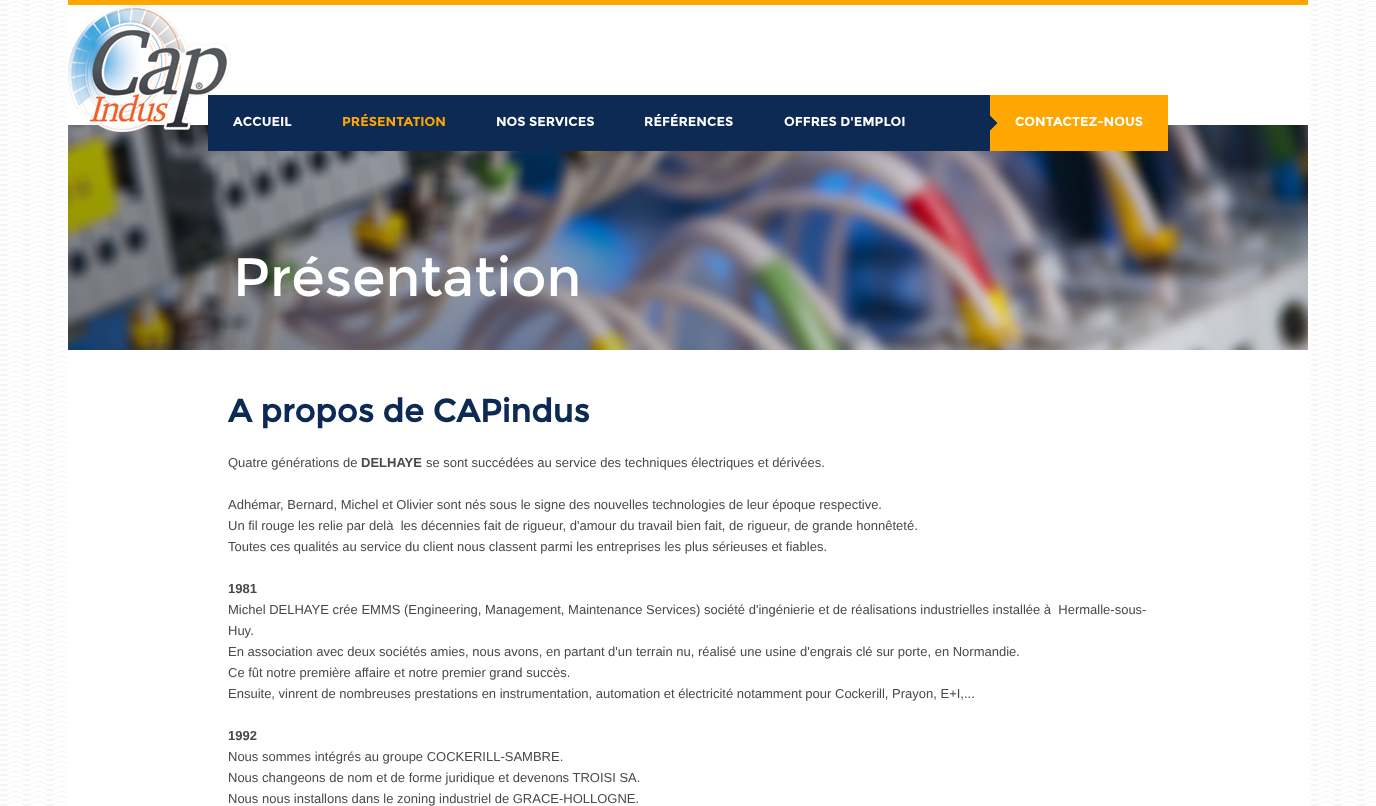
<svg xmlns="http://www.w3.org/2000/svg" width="1376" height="806">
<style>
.a{font:bold 13px 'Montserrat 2';fill:#fff}
.b{font:bold 13px 'Montserrat 2';fill:#ffa700}
.c{font:54px Montserrat;fill:#fff}
.d{font:bold 32px Montserrat;fill:#0d2a54}
.e{font:13px Liberation Sans;fill:#494949}
.f{font:bold 13px Liberation Sans;fill:#494949}
</style>
<rect width="100%" height="100%" fill="#fff"/>
<image href="1.png" x="0" y="0" width="1376" height="806"/>
<path fill="#fff" d="M68 5h1240v801H68z"/>
<image href="2.png" x="68" y="125" width="1240" height="225"/>
<path fill="#ffa700" d="M68 0h1240v5H68z"/>
<image href="3.png" x="68" y="5" width="163" height="127"/>
<path fill="#0d2a54" d="M208 95h790v56H208z"/>
<image href="4.png" x="990" y="95" width="178" height="56"/>
<text class="a" x="233" y="126">ACCUEIL</text>
<text class="b" x="342" y="126">PRÉSENTATION</text>
<text class="a" x="496" y="126">NOS SERVICES</text>
<text class="a" x="644" y="126">RÉFÉRENCES</text>
<text class="a" x="784" y="126">OFFRES D'EMPLOI</text>
<text class="a" x="1015" y="126">CONTACTEZ-NOUS</text>
<text class="c" x="233" y="296">Présentation</text>
<text class="d" x="228" y="422">A propos de CAPindus</text>
<text class="e" x="228" y="467">Quatre générations de</text>
<text class="f" x="361" y="467">DELHAYE</text>
<text class="e" x="426" y="467">se sont succédées au service des techniques électriques et dérivées.</text>
<text class="e" x="228" y="509">Adhémar, Bernard, Michel et Olivier sont nés sous le signe des nouvelles technologies de leur époque respective.</text>
<text class="e" xml:space="preserve" x="228" y="530">Un fil rouge les relie par delà  les décennies fait de rigueur, d'amour du travail bien fait, de rigueur, de grande honnêteté.</text>
<text class="e" x="228" y="551">Toutes ces qualités au service du client nous classent parmi les entreprises les plus sérieuses et fiables.</text>
<text class="f" x="228" y="593">1981</text>
<text class="e" xml:space="preserve" x="228" y="614">Michel DELHAYE crée EMMS (Engineering, Management, Maintenance Services) société d'ingénierie et de réalisations industrielles installée à  Hermalle-sous-</text>
<text class="e" x="228" y="635">Huy.</text>
<text class="e" x="228" y="656">En association avec deux sociétés amies, nous avons, en partant d'un terrain nu, réalisé une usine d'engrais clé sur porte, en Normandie.</text>
<text class="e" x="228" y="677">Ce fût notre première affaire et notre premier grand succès.</text>
<text class="e" x="228" y="698">Ensuite, vinrent de nombreuses prestations en instrumentation, automation et électricité notamment pour Cockerill, Prayon, E+I,...</text>
<text class="f" x="228" y="740">1992</text>
<text class="e" x="228" y="761">Nous sommes intégrés au groupe COCKERILL-SAMBRE.</text>
<text class="e" x="228" y="782">Nous changeons de nom et de forme juridique et devenons TROISI SA.</text>
<text class="e" x="228" y="803">Nous nous installons dans le zoning industriel de GRACE-HOLLOGNE.</text>
</svg>
